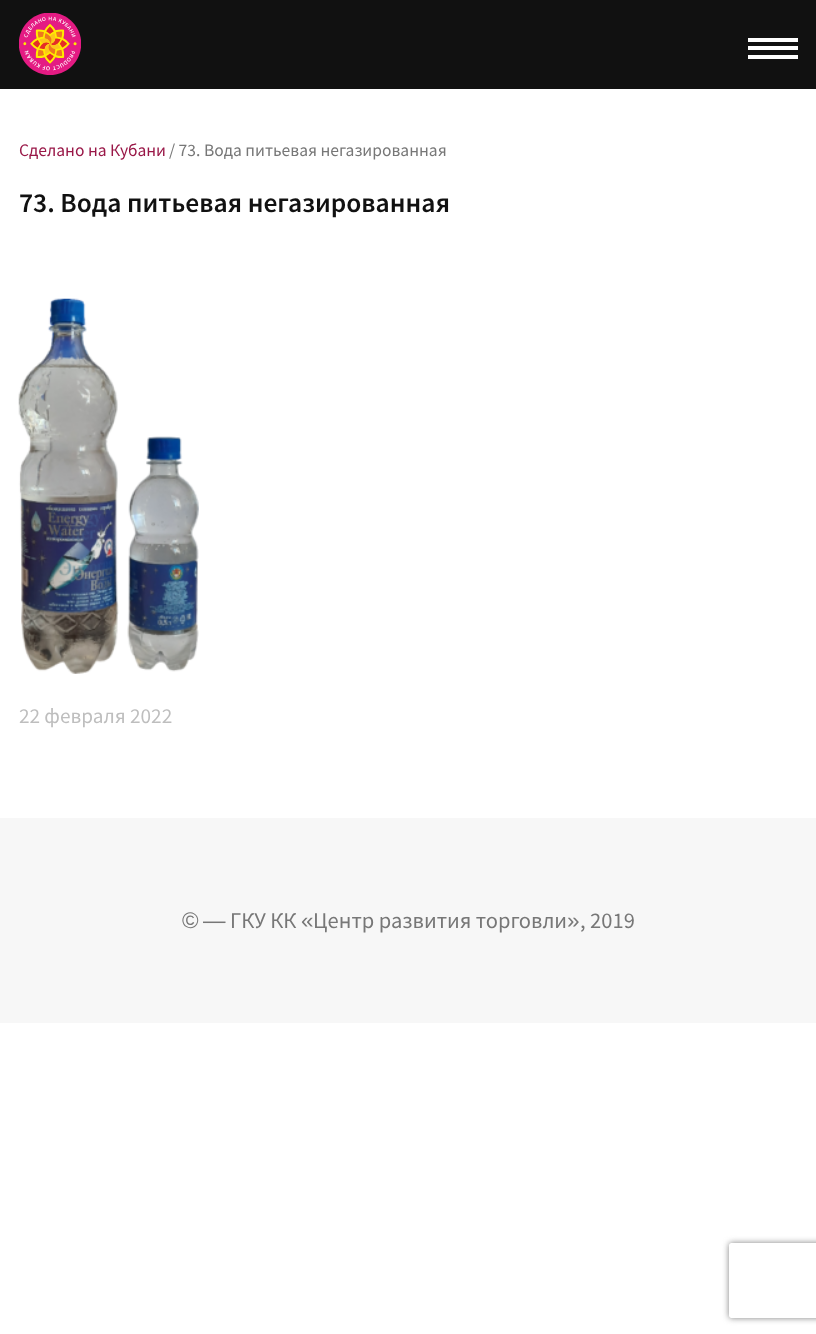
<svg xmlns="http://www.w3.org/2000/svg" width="816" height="1334">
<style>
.a{font:17.5px Source Sans Pro;fill:#991747}
.b{font:17.5px Source Sans Pro;fill:#777}
.c{font:600 27.5px Source Sans Pro;fill:#111}
.d{font:21.25px Source Sans Pro;fill:#bebebe}
.e{font:22.5px Liberation Sans;fill:#777}
.f{font:22.5px Source Sans Pro;fill:#777}
</style>
<defs>
<clipPath id="clip1"><path d="M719 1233h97v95h-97zm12.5 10h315c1.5 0 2.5 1 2.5 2.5v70c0 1.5-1 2.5-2.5 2.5h-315c-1.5 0-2.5-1-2.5-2.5v-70c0-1.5 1-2.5 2.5-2.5z" clip-rule="evenodd"/></clipPath>
</defs>
<rect width="100%" height="100%" fill="#fff"/>
<path fill="#111" d="M0 0h816v89H0z"/>
<image href="1.png" x="19" y="13" width="62" height="62"/>
<path fill="#fff" d="M748 38h50v4H748z"/>
<path fill="#fff" d="M748 46h50v4H748z"/>
<path fill="#fff" d="M748 55h50v4H748z"/>
<image href="2.png" x="18" y="298" width="181" height="376"/>
<path fill="#f7f7f7" d="M0 818h816v205H0z"/>
<g clip-path="url(#clip1)">
<rect fill="#808080" filter="blur(3px)" x="729" y="1243" width="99" height="75" rx="2.5"/>
</g>
<text class="a" x="19" y="156">Сделано на Кубани</text>
<text class="b" x="169" y="156">/ 73. Вода питьевая негазированная</text>
<text class="c" x="19" y="212">73. Вода питьевая негазированная</text>
<text class="d" x="19" y="723">22 февраля 2022</text>
<text class="e" x="182" y="928">©</text>
<text class="e" x="203" y="928">—</text>
<text class="f" x="230" y="928">ГКУ КК</text>
<text class="e" x="301" y="928">«</text>
<text class="f" x="313" y="928">Центр развития торговли</text>
<text class="e" x="567" y="928">»</text>
<text class="f" x="580" y="928">, 2019</text>
</svg>
